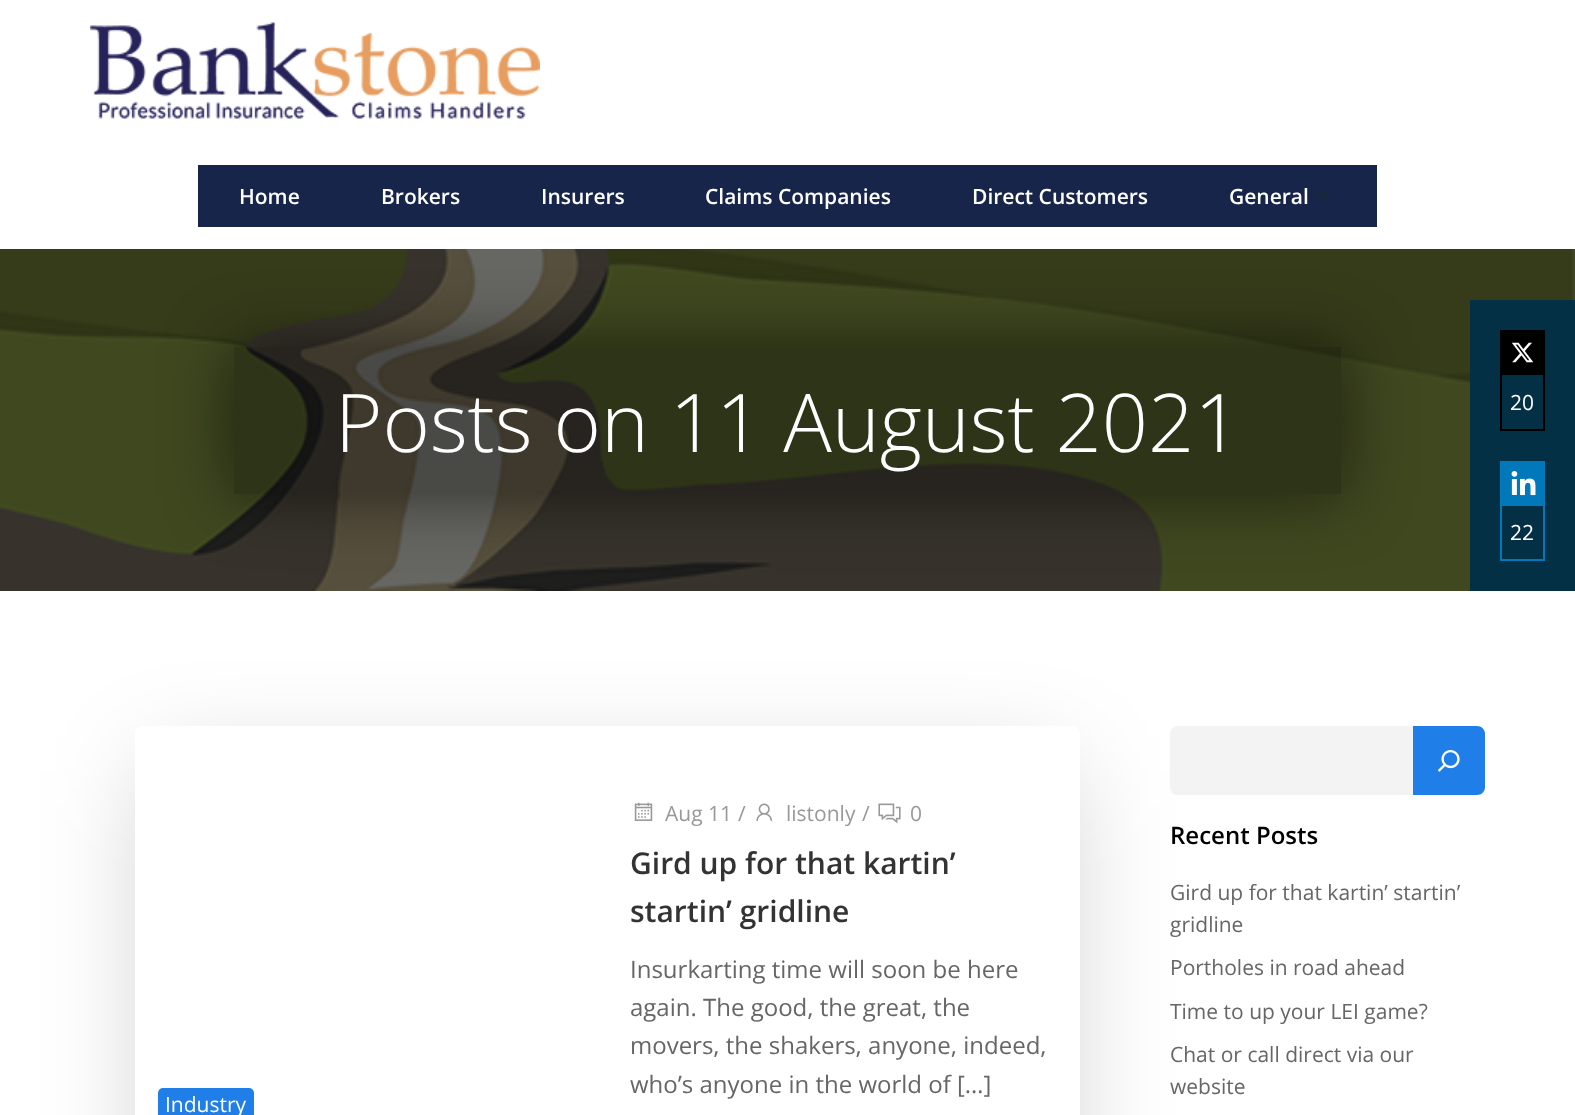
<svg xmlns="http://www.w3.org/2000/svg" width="1575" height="1115">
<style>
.a{font:600 21px Open Sans;fill:#fff}
.b{font:300 81px Open Sans;fill:#fff}
.c{font:21px Open Sans;fill:#999}
.d{font:600 30px Open Sans;fill:#333}
.e{font:24px Open Sans;fill:#666}
.f{font:21px Open Sans;fill:#fff}
.g{font:600 24px Open Sans;fill:#000}
.h{font:21px Open Sans;fill:#666}
</style>
<defs>
<clipPath id="clip1"><path d="M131 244h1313v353h-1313zm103 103h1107v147h-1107z" clip-rule="evenodd"/></clipPath>
<clipPath id="clip2"><path d="M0 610h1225v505h-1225zm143 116h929c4.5 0 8 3.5 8 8v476c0 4.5-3.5 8-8 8h-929c-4.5 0-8-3.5-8-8v-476c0-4.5 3.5-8 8-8z" clip-rule="evenodd"/></clipPath>
</defs>
<rect width="100%" height="100%" fill="#fff"/>
<image href="1.png" x="90" y="22" width="450" height="97"/>
<path fill="#18254a" d="M198 165h1179v62H198z"/>
<image href="2.png" x="1317" y="192" width="12" height="8"/>
<image href="3.png" x="0" y="249" width="1575" height="342"/>
<g clip-path="url(#clip1)">
<path fill="#00000080" filter="blur(33px)" d="M231 344h1113v153H231z"/>
</g>
<path fill="#00000047" d="M234 347h1107v147H234z"/>
<g clip-path="url(#clip2)">
<path fill="#00000033" filter="blur(53px)" d="M150 770h915v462H150z"/>
</g>
<image href="4.png" x="634" y="802" width="19" height="19"/>
<image href="5.png" x="756" y="803" width="17" height="18"/>
<image href="6.png" x="878" y="803" width="23" height="21"/>
<rect fill="#1f7ee7" x="158" y="1088" width="96" height="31" rx="5"/>
<path fill="#f3f3f3" d="M1178 726h235v69h-235c-4.5 0-8-3.5-8-8v-53c0-4.5 3.5-8 8-8z"/>
<path fill="#1f7ee7" d="M1413 726h64c4.5 0 8 3.5 8 8v53c0 4.5-3.5 8-8 8h-64z"/>
<image href="7.png" x="1437" y="750" width="23" height="22"/>
<path fill="#043045" d="M1470 300h105v291H1470z"/>
<path fill="none" stroke="#000" stroke-width="2" d="M1501 331h43v99H1501z"/>
<path fill="#000" d="M1502 332h41v43H1502z"/>
<image href="8.png" x="1511" y="342" width="23" height="21"/>
<path fill="none" stroke="#0078ba" stroke-width="2" d="M1501 462h43v98H1501z"/>
<path fill="#0078ba" d="M1502 463h41v43H1502z"/>
<image href="9.png" x="1511" y="471" width="25" height="25"/>
<text class="a" x="239" y="204">Home</text>
<text class="a" x="381" y="204">Brokers</text>
<text class="a" x="541" y="204">Insurers</text>
<text class="a" x="705" y="204">Claims Companies</text>
<text class="a" x="972" y="204">Direct Customers</text>
<text class="a" x="1229" y="204">General</text>
<text class="b" x="335" y="452">Posts on 11 August 2021</text>
<text class="c" x="665" y="821">Aug 11</text>
<text class="c" x="738" y="821">/</text>
<text class="c" x="786" y="821">listonly</text>
<text class="c" x="862" y="821">/</text>
<text class="c" x="910" y="821">0</text>
<text class="d" x="630" y="874">Gird up for that kartin’</text>
<text class="d" x="630" y="922">startin’ gridline</text>
<text class="e" x="630" y="978">Insurkarting time will soon be here</text>
<text class="e" x="630" y="1016">again. The good, the great, the</text>
<text class="e" x="630" y="1054">movers, the shakers, anyone, indeed,</text>
<text class="e" x="630" y="1093">who’s anyone in the world of […]</text>
<text class="f" x="165" y="1112">Industry</text>
<text class="g" x="1170" y="844">Recent Posts</text>
<text class="h" x="1170" y="900">Gird up for that kartin’ startin’</text>
<text class="h" x="1170" y="932">gridline</text>
<text class="h" x="1170" y="975">Portholes in road ahead</text>
<text class="h" x="1170" y="1019">Time to up your LEI game?</text>
<text class="h" x="1170" y="1062">Chat or call direct via our</text>
<text class="h" x="1170" y="1094">website</text>
<text class="f" x="1510" y="410">20</text>
<text class="f" x="1510" y="540">22</text>
</svg>
